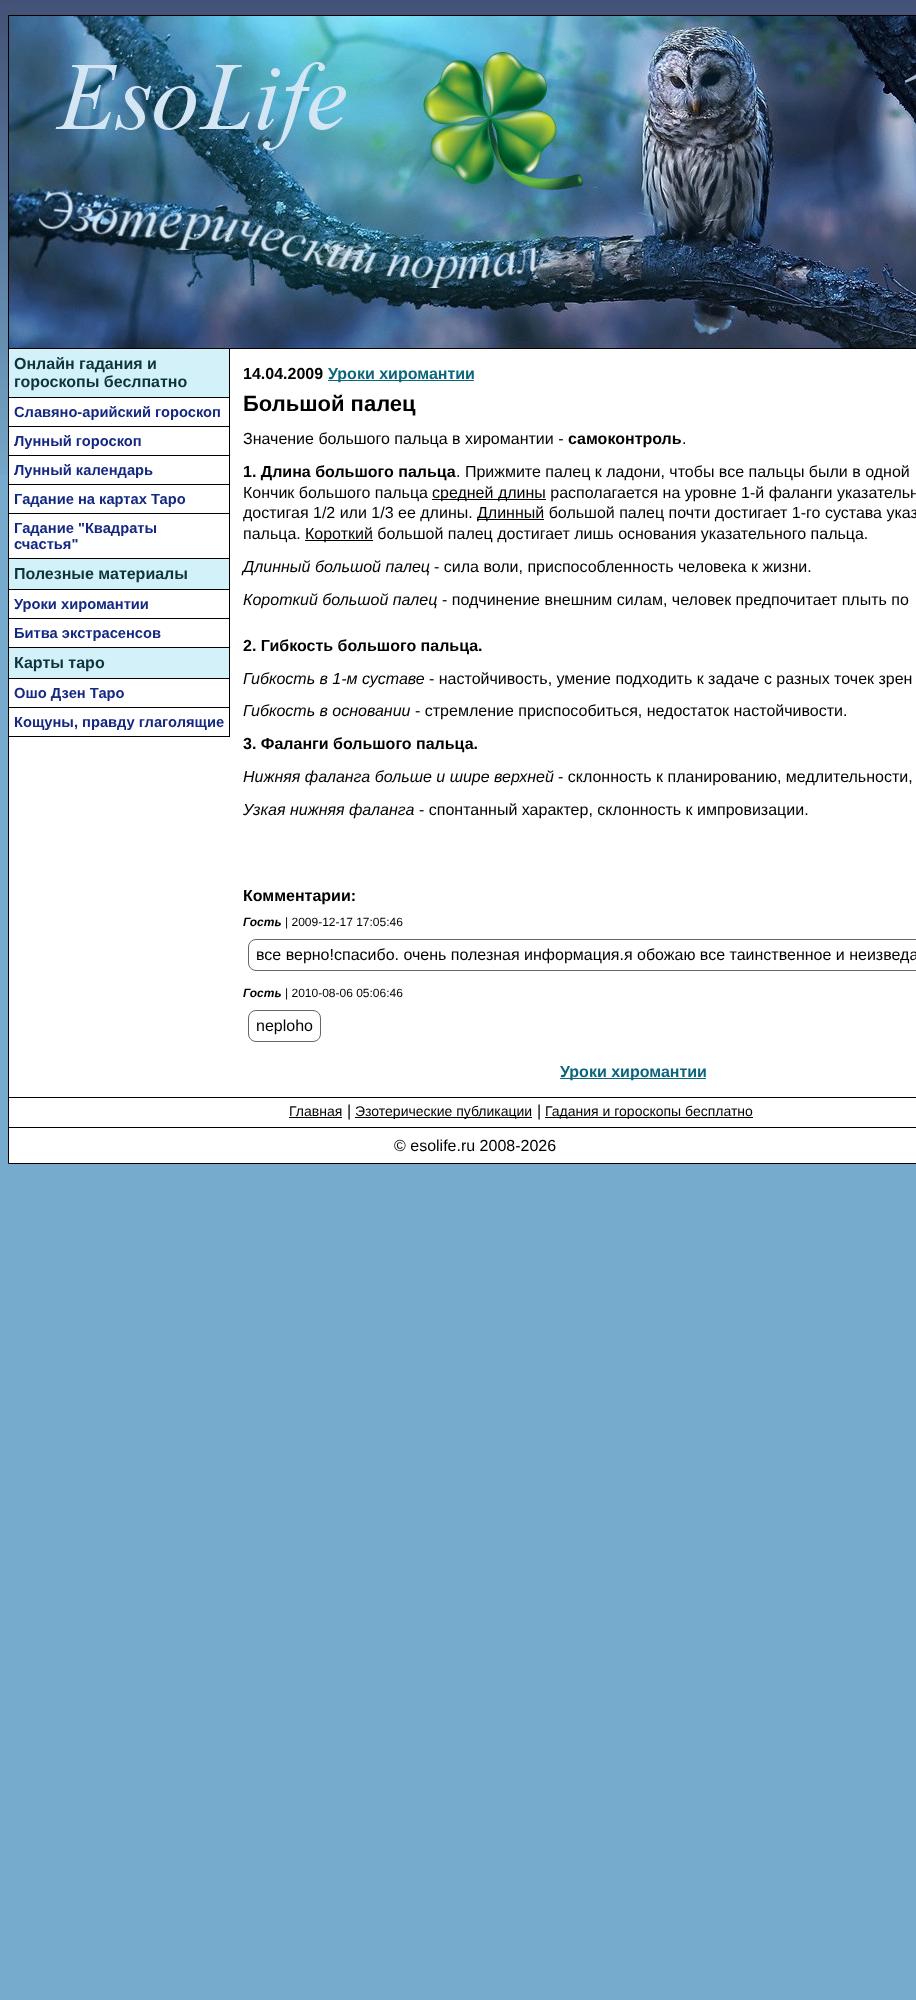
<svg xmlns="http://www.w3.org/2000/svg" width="916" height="2000">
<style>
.a{font:bold 16px Liberation Sans;fill:#0d333d}
.b{font:bold 14.7px Liberation Sans;fill:#142881}
.c{font:bold 16px Liberation Sans;fill:#000}
.d{font:bold 16px Liberation Sans;fill:#0b667d}
.e{font:bold 22px Liberation Sans;fill:#000}
.f{font:16px Liberation Sans;fill:#000}
.g{font:italic 16px Liberation Sans;fill:#000}
.h{font:italic bold 12px Liberation Sans;fill:#000}
.i{font:12px Liberation Sans;fill:#000}
.j{font:14px Liberation Sans;fill:#000}
</style>
<rect width="100%" height="100%" fill="#76abcd"/>
<image href="1.png" x="0" y="0" width="916" height="475"/>
<path fill="#fff" d="M9 349h907v814H9z"/>
<path fill="none" stroke="#000" d="M8.5 15.5h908v1148H8.5z"/>
<image href="2.png" x="9" y="16" width="907" height="332"/>
<path fill="#000" d="M9 348h907v1H9z"/>
<path fill="#000" d="M229 349h1v388H229z"/>
<path fill="#d3f1f8" d="M9 349h220v48H9z"/>
<path fill="#000" d="M9 397h220v1H9z"/>
<path fill="#000" d="M9 426h220v1H9z"/>
<path fill="#000" d="M9 455h220v1H9z"/>
<path fill="#000" d="M9 484h220v1H9z"/>
<path fill="#000" d="M9 513h220v1H9z"/>
<path fill="#000" d="M9 558h220v1H9z"/>
<path fill="#d3f1f8" d="M9 559h220v30H9z"/>
<path fill="#000" d="M9 589h220v1H9z"/>
<path fill="#000" d="M9 618h220v1H9z"/>
<path fill="#000" d="M9 647h220v1H9z"/>
<path fill="#d3f1f8" d="M9 648h220v30H9z"/>
<path fill="#000" d="M9 678h220v1H9z"/>
<path fill="#000" d="M9 707h220v1H9z"/>
<path fill="#000" d="M9 736h220v1H9z"/>
<path fill="#0b667d" d="M328 380h146v1H328z"/>
<path fill="#000" d="M432 499h114v1H432z"/>
<path fill="#000" d="M477 519h67v1H477z"/>
<path fill="#000" d="M305 540h68v1H305z"/>
<rect fill="none" stroke="#666" x="248.5" y="939.5" width="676" height="31" rx="7.5"/>
<rect fill="none" stroke="#666" x="248.5" y="1010.5" width="72" height="31" rx="7.5"/>
<path fill="#0b667d" d="M560 1078h146v1H560z"/>
<path fill="#000" d="M9 1097h907v1H9z"/>
<path fill="#000" d="M289 1117h53v1H289z"/>
<path fill="#000" d="M355 1117h177v1H355z"/>
<path fill="#000" d="M545 1117h208v1H545z"/>
<path fill="#000" d="M9 1127h907v1H9z"/>
<text class="a" x="14" y="369">Онлайн гадания и</text>
<text class="a" x="14" y="387">гороскопы беслпатно</text>
<text class="b" x="14" y="417">Славяно-арийский гороскоп</text>
<text class="b" x="14" y="446">Лунный гороскоп</text>
<text class="b" x="14" y="475">Лунный календарь</text>
<text class="b" x="14" y="504">Гадание на картах Таро</text>
<text class="b" x="14" y="533">Гадание "Квадраты</text>
<text class="b" x="14" y="549">счастья"</text>
<text class="a" x="14" y="579">Полезные материалы</text>
<text class="b" x="14" y="609">Уроки хиромантии</text>
<text class="b" x="14" y="638">Битва экстрасенсов</text>
<text class="a" x="14" y="668">Карты таро</text>
<text class="b" x="14" y="698">Ошо Дзен Таро</text>
<text class="b" x="14" y="727">Кощуны, правду глаголящие</text>
<text class="c" x="243" y="379">14.04.2009</text>
<text class="d" x="328" y="379">Уроки хиромантии</text>
<text class="e" x="243" y="411">Большой палец</text>
<text class="f" x="243" y="444">Значение большого пальца в хиромантии -</text>
<text class="c" x="568" y="444">самоконтроль</text>
<text class="f" x="682" y="444">.</text>
<text class="c" x="243" y="477">1. Длина большого пальца</text>
<text class="f" x="456" y="477">. Прижмите палец к ладони, чтобы все пальцы были в одной</text>
<text class="f" x="243" y="498">Кончик большого пальца</text>
<text class="f" x="432" y="498">средней длины располагается на уровне 1-й фаланги указательн</text>
<text class="f" x="243" y="518">достигая 1/2 или 1/3 ее длины.</text>
<text class="f" x="477" y="518">Длинный большой палец почти достигает 1-го сустава указ</text>
<text class="f" x="243" y="539">пальца.</text>
<text class="f" x="305" y="539">Короткий большой палец достигает лишь основания указательного пальца.</text>
<text class="g" x="243" y="572">Длинный большой палец</text>
<text class="f" x="434" y="572">- сила воли, приспособленность человека к жизни.</text>
<text class="g" x="243" y="605">Короткий большой палец</text>
<text class="f" x="442" y="605">- подчинение внешним силам, человек предпочитает плыть по</text>
<text class="c" x="243" y="651">2. Гибкость большого пальца.</text>
<text class="g" x="243" y="684">Гибкость в 1-м суставе</text>
<text class="f" x="429" y="684">- настойчивость, умение подходить к задаче с разных точек зрен</text>
<text class="g" x="243" y="716">Гибкость в основании</text>
<text class="f" x="415" y="716">- стремление приспособиться, недостаток настойчивости.</text>
<text class="c" x="243" y="749">3. Фаланги большого пальца.</text>
<text class="g" x="243" y="782">Нижняя фаланга больше и шире верхней</text>
<text class="f" x="558" y="782">- склонность к планированию, медлительности,</text>
<text class="g" x="243" y="815">Узкая нижняя фаланга</text>
<text class="f" x="419" y="815">- спонтанный характер, склонность к импровизации.</text>
<text class="c" x="243" y="901">Комментарии:</text>
<text class="h" x="243" y="926">Гость</text>
<text class="i" x="285" y="926">| 2009-12-17 17:05:46</text>
<text class="f" x="256" y="960">все верно!спасибо. очень полезная информация.я обожаю все таинственное и неизведа</text>
<text class="h" x="243" y="997">Гость</text>
<text class="i" x="285" y="997">| 2010-08-06 05:06:46</text>
<text class="f" x="256" y="1031">neploho</text>
<text class="d" x="560" y="1077">Уроки хиромантии</text>
<text class="j" x="289" y="1116">Главная</text>
<text class="f" x="347" y="1116">|</text>
<text class="j" x="355" y="1116">Эзотерические публикации</text>
<text class="f" x="537" y="1116">|</text>
<text class="j" x="545" y="1116">Гадания и гороскопы бесплатно</text>
<text class="f" x="394" y="1151">© esolife.ru 2008-2026</text>
</svg>
